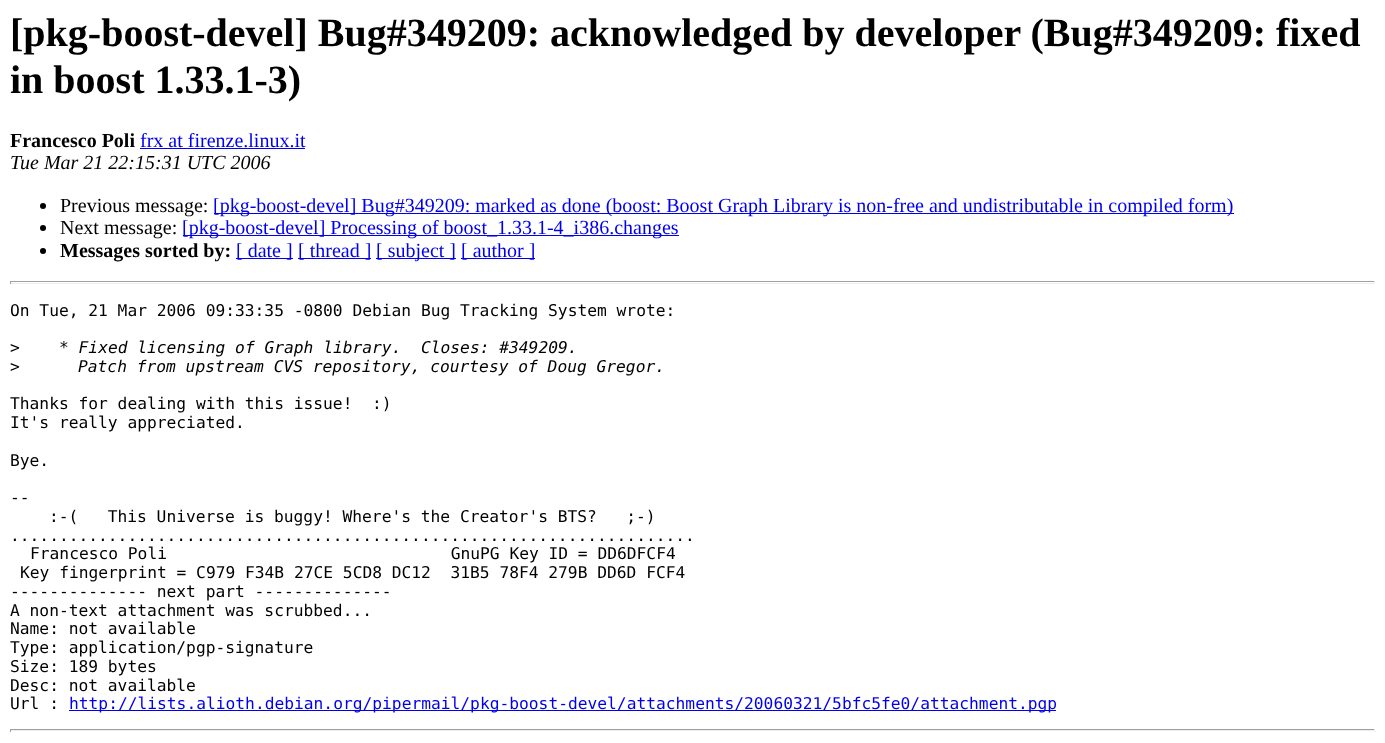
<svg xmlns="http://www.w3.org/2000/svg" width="1385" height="743">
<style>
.a{font:bold 40px Liberation Serif;fill:#000}
.b{font:bold 20px Liberation Serif;fill:#000}
.c{font:20px Liberation Serif;fill:#00e}
.d{font:italic 20px Liberation Serif;fill:#000}
.e{font:20px Liberation Serif;fill:#000}
.f{font:16.25px DejaVu Sans Mono;fill:#000}
.g{font:italic 16.25px DejaVu Sans Mono;fill:#000}
.h{font:16.25px DejaVu Sans Mono;fill:#00e}
</style>
<rect width="100%" height="100%" fill="#fff"/>
<path fill="#00e" d="M140 148h165v1H140z"/>
<circle fill="#000" cx="43" cy="206" r="3"/>
<path fill="#00e" d="M214 213h1020v1H214z"/>
<circle fill="#000" cx="43" cy="228" r="3"/>
<path fill="#00e" d="M183 235h496v1H183z"/>
<circle fill="#000" cx="43" cy="251" r="3"/>
<path fill="#00e" d="M236 258h57v1H236z"/>
<path fill="#00e" d="M298 258h73v1H298z"/>
<path fill="#00e" d="M376 258h80v1H376z"/>
<path fill="#00e" d="M461 258h74v1H461z"/>
<path fill="#9f9f9f" d="M10 281h1365v1H10z"/>
<path fill="#eee" d="M1374 281h1v3H1374z"/>
<path fill="#eee" d="M10 283h1365v1H10z"/>
<path fill="#9f9f9f" d="M10 281h1v3H10z"/>
<path fill="#00e" d="M69 710h987v1H69z"/>
<path fill="#9f9f9f" d="M10 729h1365v1H10z"/>
<path fill="#eee" d="M1374 729h1v3H1374z"/>
<path fill="#eee" d="M10 730h1365v1H10z"/>
<path fill="#9f9f9f" d="M10 729h1v3H10z"/>
<text class="a" x="10" y="46">[pkg-boost-devel] Bug#349209: acknowledged by developer (Bug#349209: fixed</text>
<text class="a" x="10" y="93">in boost 1.33.1-3)</text>
<text class="b" x="10" y="147">Francesco Poli</text>
<text class="c" x="140" y="147">frx at firenze.linux.it</text>
<text class="d" x="10" y="169">Tue Mar 21 22:15:31 UTC 2006</text>
<text class="e" x="60" y="212">Previous message:</text>
<text class="c" x="213" y="212">[pkg-boost-devel] Bug#349209: marked as done (boost: Boost Graph Library is non-free and undistributable in compiled form)</text>
<text class="e" x="60" y="234">Next message:</text>
<text class="c" x="182" y="234">[pkg-boost-devel] Processing of boost_1.33.1-4_i386.changes</text>
<text class="b" x="60" y="257">Messages sorted by:</text>
<text class="c" x="236" y="257">[ date ]</text>
<text class="c" x="298" y="257">[ thread ]</text>
<text class="c" x="376" y="257">[ subject ]</text>
<text class="c" x="461" y="257">[ author ]</text>
<text class="f" x="10" y="316">On Tue, 21 Mar 2006 09:33:35 -0800 Debian Bug Tracking System wrote:</text>
<text class="f" x="10" y="353">&gt;</text>
<text class="g" xml:space="preserve" x="59" y="353">* Fixed licensing of Graph library.  Closes: #349209.</text>
<text class="f" x="10" y="372">&gt;</text>
<text class="g" x="78" y="372">Patch from upstream CVS repository, courtesy of Doug Gregor.</text>
<text class="f" xml:space="preserve" x="10" y="409">Thanks for dealing with this issue!  :)</text>
<text class="f" x="10" y="428">It's really appreciated.</text>
<text class="f" x="10" y="466">Bye.</text>
<text class="f" x="10" y="503">--</text>
<text class="f" xml:space="preserve" x="49" y="522">:-(   This Universe is buggy! Where's the Creator's BTS?   ;-)</text>
<text class="f" x="10" y="541">......................................................................</text>
<text class="f" xml:space="preserve" x="30" y="559">Francesco Poli                             GnuPG Key ID = DD6DFCF4</text>
<text class="f" xml:space="preserve" x="20" y="578">Key fingerprint = C979 F34B 27CE 5CD8 DC12  31B5 78F4 279B DD6D FCF4</text>
<text class="f" x="10" y="597">-------------- next part --------------</text>
<text class="f" x="10" y="616">A non-text attachment was scrubbed...</text>
<text class="f" x="10" y="634">Name: not available</text>
<text class="f" x="10" y="653">Type: application/pgp-signature</text>
<text class="f" x="10" y="672">Size: 189 bytes</text>
<text class="f" x="10" y="691">Desc: not available</text>
<text class="f" x="10" y="709">Url :</text>
<text class="h" x="69" y="709">http://lists.alioth.debian.org/pipermail/pkg-boost-devel/attachments/20060321/5bfc5fe0/attachment.pgp</text>
</svg>
